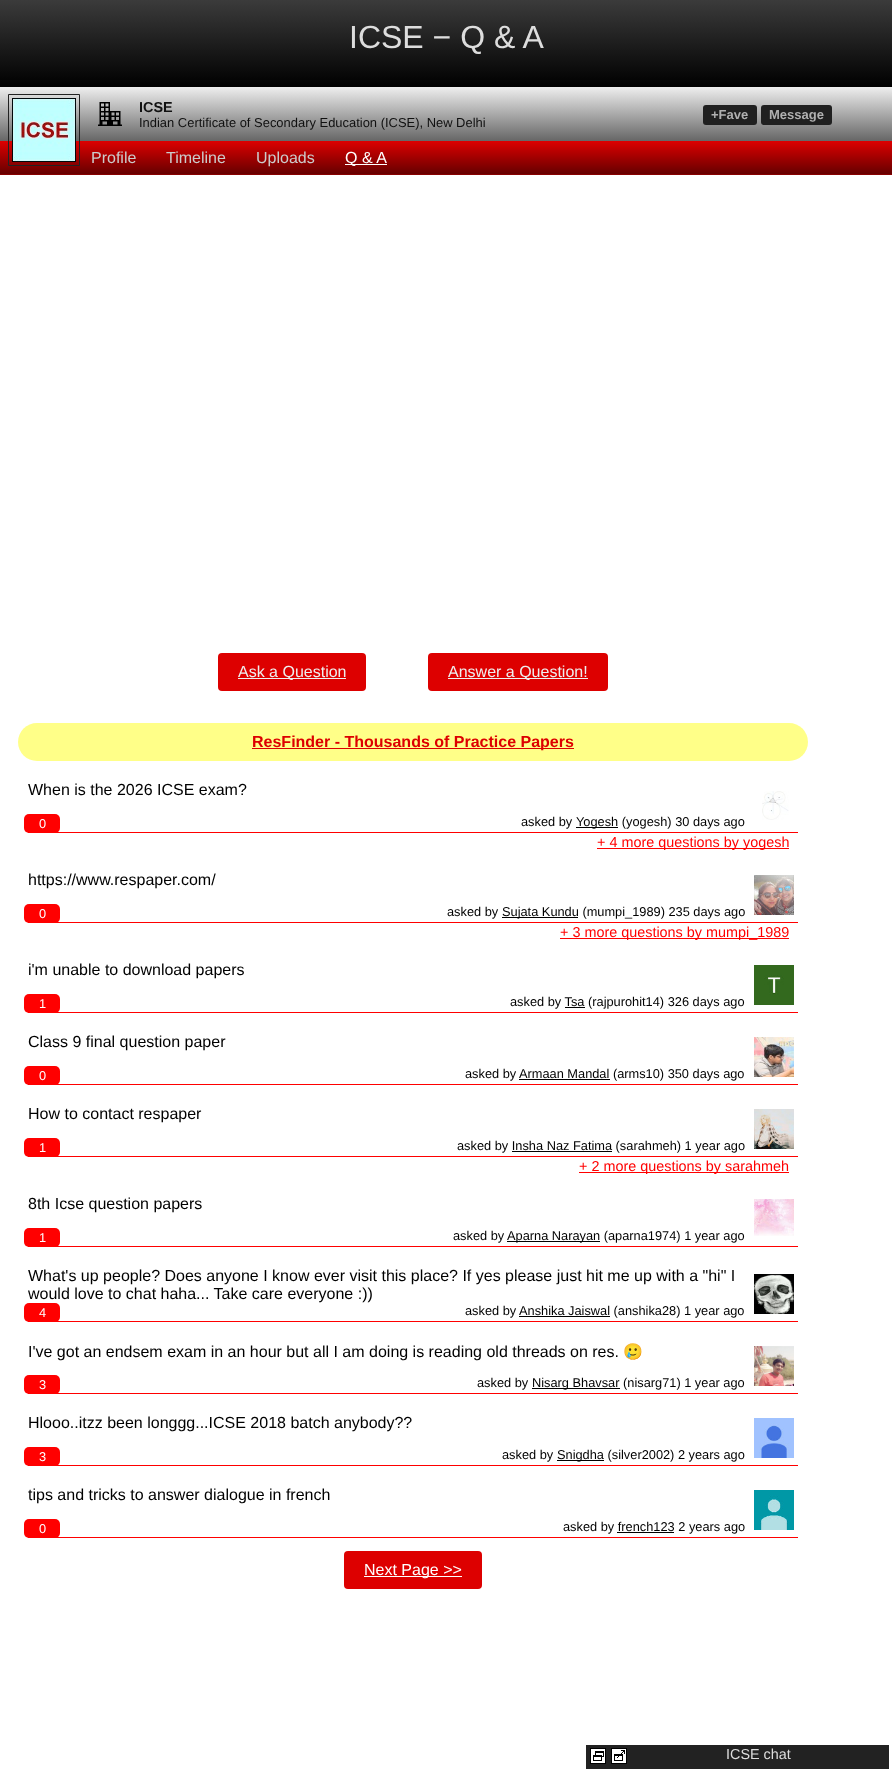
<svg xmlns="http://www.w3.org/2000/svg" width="892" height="1771">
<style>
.a{font:32px Liberation Sans;fill:#ddd}
.b{font:bold 14.4px Liberation Sans;fill:#111}
.c{font:12.95px Liberation Sans;fill:#111}
.d{font:bold 13px Liberation Sans;fill:#b0b0b0}
.e{font:16px Liberation Sans;fill:#ccc}
.f{font:16px Liberation Sans;fill:#fff}
.g{font:16px Liberation Sans;fill:#eee}
.h{font:bold 16px Liberation Sans;fill:#d00}
.i{font:16px Liberation Sans;fill:#000}
.j{font:12.8px Liberation Sans;fill:#fff}
.k{font:12.8px Liberation Sans;fill:#000}
.l{font:14.4px Liberation Sans;fill:#f00}
.m{font:16px Noto Color Emoji;fill:#000}
.n{font:14.4px Liberation Sans;fill:#ddd}
</style>
<defs>
<linearGradient id="g1" gradientUnits="userSpaceOnUse" x1="446" y1="-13" x2="446" y2="87"><stop offset="0" stop-color="#444"/><stop offset="1" stop-color="#000"/></linearGradient>
<linearGradient id="g2" gradientUnits="userSpaceOnUse" x1="446" y1="87" x2="446" y2="141"><stop offset="0" stop-color="#eee"/><stop offset="1" stop-color="#666"/></linearGradient>
<linearGradient id="g3" gradientUnits="userSpaceOnUse" x1="446" y1="141" x2="446" y2="174"><stop offset="0" stop-color="#d00"/><stop offset="1" stop-color="#600"/></linearGradient>
</defs>
<rect width="100%" height="100%" fill="#fff"/>
<path fill="url(#g1)" d="M0 0h892v87H0z"/>
<path fill="url(#g2)" d="M0 87h892v54H0z"/>
<path fill="url(#g3)" d="M0 141h892v33H0z"/>
<path fill="none" stroke="#222" d="M8.5 94.5h71v71H8.5z"/>
<image href="1.png" x="12" y="98" width="64" height="64"/>
<image href="2.png" x="98" y="102" width="24" height="24"/>
<rect fill="#202020" x="703" y="105" width="54" height="20" rx="3"/>
<rect fill="#202020" x="761" y="105" width="71" height="20" rx="3"/>
<path fill="#800" d="M0 174h892v1H0z"/>
<path fill="#fff" d="M345 164h42v1H345z"/>
<rect fill="#d00" x="218" y="653" width="148" height="38" rx="4"/>
<path fill="#eee" d="M238 678h108v1H238z"/>
<rect fill="#d00" x="428" y="653" width="180" height="38" rx="4"/>
<path fill="#eee" d="M448 678h140v1H448z"/>
<rect fill="#ff8" x="18" y="723" width="790" height="38" rx="19"/>
<path fill="#d00" d="M252 748h322v1H252z"/>
<image href="3.png" x="762" y="791" width="27" height="29"/>
<path fill="#f00" d="M28 832h770v1H28z"/>
<rect fill="#f00" x="24" y="814" width="36" height="19" rx="5"/>
<path fill="#000" d="M576 827h42v1H576z"/>
<path fill="#f00" d="M597 848h192v1H597z"/>
<image href="4.png" x="754" y="875" width="40" height="40"/>
<path fill="#f00" d="M28 922h770v1H28z"/>
<rect fill="#f00" x="24" y="904" width="36" height="19" rx="5"/>
<path fill="#000" d="M502 917h76v1H502z"/>
<path fill="#f00" d="M560 938h229v1H560z"/>
<image href="5.png" x="754" y="965" width="40" height="40"/>
<path fill="#f00" d="M28 1012h770v1H28z"/>
<rect fill="#f00" x="24" y="994" width="36" height="19" rx="5"/>
<path fill="#000" d="M565 1007h20v1H565z"/>
<image href="6.png" x="754" y="1037" width="40" height="40"/>
<path fill="#f00" d="M28 1084h770v1H28z"/>
<rect fill="#f00" x="24" y="1066" width="36" height="19" rx="5"/>
<path fill="#000" d="M519 1079h91v1H519z"/>
<image href="7.png" x="754" y="1109" width="40" height="40"/>
<path fill="#f00" d="M28 1156h770v1H28z"/>
<rect fill="#f00" x="24" y="1138" width="36" height="19" rx="5"/>
<path fill="#000" d="M512 1151h100v1H512z"/>
<path fill="#f00" d="M579 1172h210v1H579z"/>
<image href="8.png" x="754" y="1199" width="40" height="37"/>
<path fill="#f00" d="M28 1246h770v1H28z"/>
<rect fill="#f00" x="24" y="1228" width="36" height="19" rx="5"/>
<path fill="#000" d="M507 1241h93v1H507z"/>
<image href="9.png" x="754" y="1274" width="40" height="40"/>
<path fill="#f00" d="M28 1321h770v1H28z"/>
<rect fill="#f00" x="24" y="1303" width="36" height="19" rx="5"/>
<path fill="#000" d="M519 1316h91v1H519z"/>
<image href="10.png" x="754" y="1346" width="40" height="40"/>
<path fill="#f00" d="M28 1393h770v1H28z"/>
<rect fill="#f00" x="24" y="1375" width="36" height="19" rx="5"/>
<path fill="#000" d="M532 1388h88v1H532z"/>
<image href="11.png" x="754" y="1418" width="40" height="40"/>
<path fill="#f00" d="M28 1465h770v1H28z"/>
<rect fill="#f00" x="24" y="1447" width="36" height="19" rx="5"/>
<path fill="#000" d="M557 1460h47v1H557z"/>
<image href="12.png" x="754" y="1490" width="40" height="40"/>
<path fill="#f00" d="M28 1537h770v1H28z"/>
<rect fill="#f00" x="24" y="1519" width="36" height="19" rx="5"/>
<path fill="#000" d="M617 1532h57v1H617z"/>
<rect fill="#d00" x="344" y="1551" width="138" height="38" rx="4"/>
<path fill="#fff" d="M364 1576h98v1H364z"/>
<path fill="#222" d="M586 1745h303v24H586z"/>
<image href="13.png" x="590" y="1748" width="16" height="16"/>
<image href="14.png" x="611" y="1748" width="16" height="16"/>
<text class="a" x="349" y="48">ICSE − Q &amp; A</text>
<text class="b" x="139" y="112">ICSE</text>
<text class="c" x="139" y="127">Indian Certificate of Secondary Education (ICSE), New Delhi</text>
<text class="d" x="711" y="119">+Fave</text>
<text class="d" x="769" y="119">Message</text>
<text class="e" x="91" y="163">Profile</text>
<text class="e" x="166" y="163">Timeline</text>
<text class="e" x="256" y="163">Uploads</text>
<text class="f" x="345" y="163">Q &amp; A</text>
<text class="g" x="238" y="677">Ask a Question</text>
<text class="g" x="448" y="677">Answer a Question!</text>
<text class="h" x="252" y="747">ResFinder - Thousands of Practice Papers</text>
<text class="i" x="28" y="795">When is the 2026 ICSE exam?</text>
<text class="j" x="39" y="828">0</text>
<text class="k" x="521" y="826">asked by</text>
<text class="k" x="576" y="826">Yogesh (yogesh) 30 days ago</text>
<text class="l" x="597" y="847">+ 4 more questions by yogesh</text>
<text class="i" x="28" y="885">https://www.respaper.com/</text>
<text class="j" x="39" y="918">0</text>
<text class="k" x="447" y="916">asked by</text>
<text class="k" x="502" y="916">Sujata Kundu (mumpi_1989) 235 days ago</text>
<text class="l" x="560" y="937">+ 3 more questions by mumpi_1989</text>
<text class="i" x="28" y="975">i'm unable to download papers</text>
<text class="j" x="39" y="1008">1</text>
<text class="k" x="510" y="1006">asked by Tsa (rajpurohit14) 326 days ago</text>
<text class="i" x="28" y="1047">Class 9 final question paper</text>
<text class="j" x="39" y="1080">0</text>
<text class="k" x="465" y="1078">asked by</text>
<text class="k" x="519" y="1078">Armaan Mandal (arms10) 350 days ago</text>
<text class="i" x="28" y="1119">How to contact respaper</text>
<text class="j" x="39" y="1152">1</text>
<text class="k" x="457" y="1150">asked by Insha Naz Fatima (sarahmeh) 1 year ago</text>
<text class="l" x="579" y="1171">+ 2 more questions by sarahmeh</text>
<text class="i" x="28" y="1209">8th Icse question papers</text>
<text class="j" x="39" y="1242">1</text>
<text class="k" x="453" y="1240">asked by</text>
<text class="k" x="507" y="1240">Aparna Narayan (aparna1974) 1 year ago</text>
<text class="i" x="28" y="1281">What's up people? Does anyone I know ever visit this place? If yes please just hit me up with a "hi" I</text>
<text class="i" x="28" y="1299">would love to chat haha... Take care everyone :))</text>
<text class="j" x="39" y="1317">4</text>
<text class="k" x="465" y="1315">asked by</text>
<text class="k" x="519" y="1315">Anshika Jaiswal (anshika28) 1 year ago</text>
<text class="i" x="28" y="1357">I've got an endsem exam in an hour but all I am doing is reading old threads on res.</text>
<text class="m" x="623" y="1357">🥲</text>
<text class="j" x="39" y="1389">3</text>
<text class="k" x="477" y="1387">asked by</text>
<text class="k" x="532" y="1387">Nisarg Bhavsar (nisarg71) 1 year ago</text>
<text class="i" x="28" y="1428">Hlooo..itzz been longgg...ICSE 2018 batch anybody??</text>
<text class="j" x="39" y="1461">3</text>
<text class="k" x="502" y="1459">asked by</text>
<text class="k" x="557" y="1459">Snigdha (silver2002) 2 years ago</text>
<text class="i" x="28" y="1500">tips and tricks to answer dialogue in french</text>
<text class="j" x="39" y="1533">0</text>
<text class="k" x="563" y="1531">asked by french123 2 years ago</text>
<text class="f" x="364" y="1575">Next Page &gt;&gt;</text>
<text class="n" x="726" y="1759">ICSE chat</text>
</svg>
